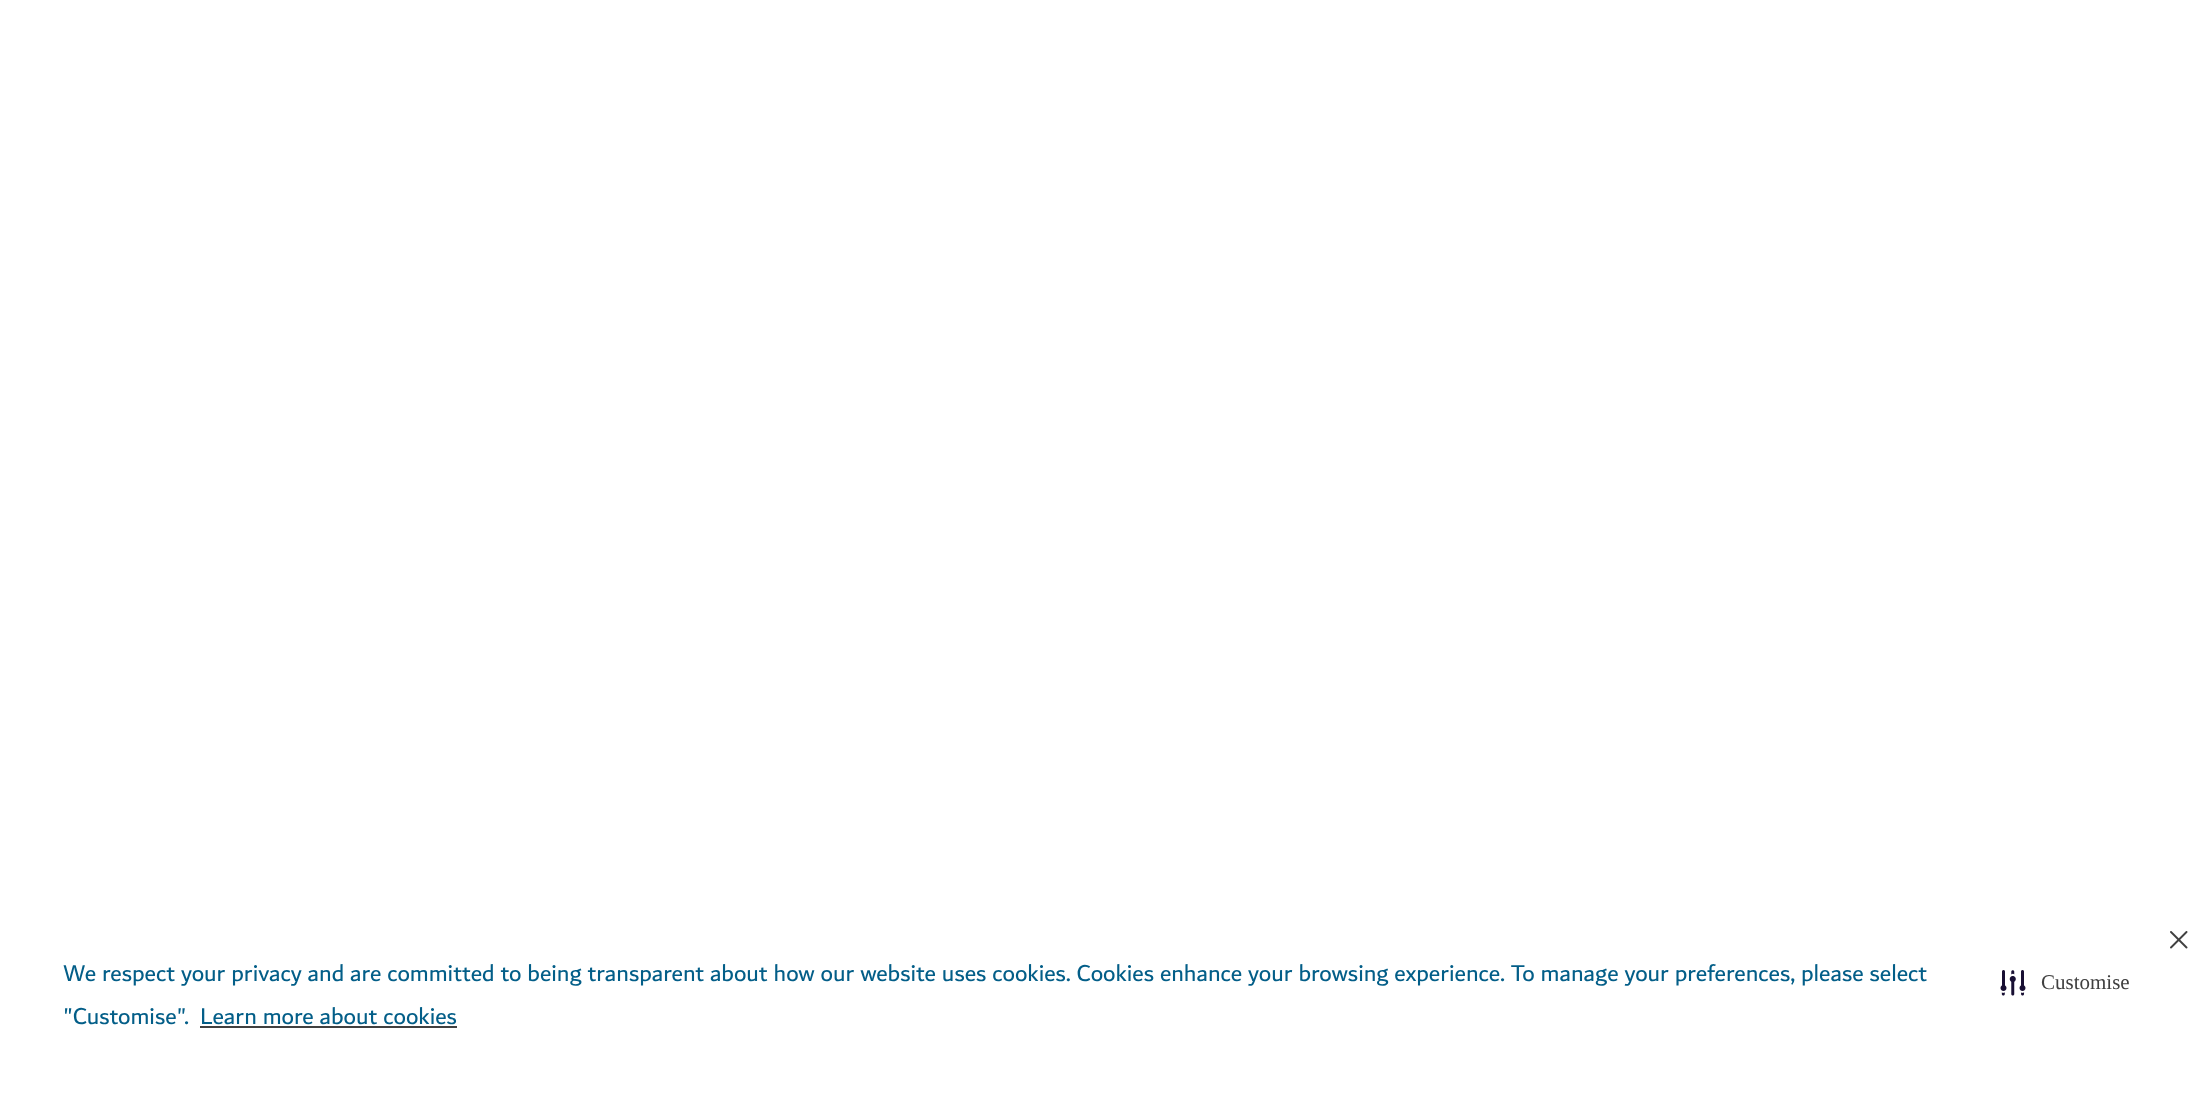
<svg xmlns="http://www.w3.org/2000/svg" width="2206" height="1120">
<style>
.a{font:24.5px 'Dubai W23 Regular';fill:#035e88}
.b{font:21px Liberation Serif;fill:#404040}
</style>
<rect width="100%" height="100%" fill="#fff"/>
<path fill="#404040" d="M200 1026h257v2H200z"/>
<image href="1.png" x="2170" y="931" width="18" height="18"/>
<image href="2.png" x="2000" y="970" width="26" height="26"/>
<text class="a" x="63" y="981">We respect your privacy and are committed to being transparent about how our website uses cookies. Cookies enhance your browsing experience. To manage your preferences, please select</text>
<text class="a" x="63" y="1024">"Customise".</text>
<text class="a" x="200" y="1024">Learn more about cookies</text>
<text class="b" x="2041" y="989">Customise</text>
</svg>
